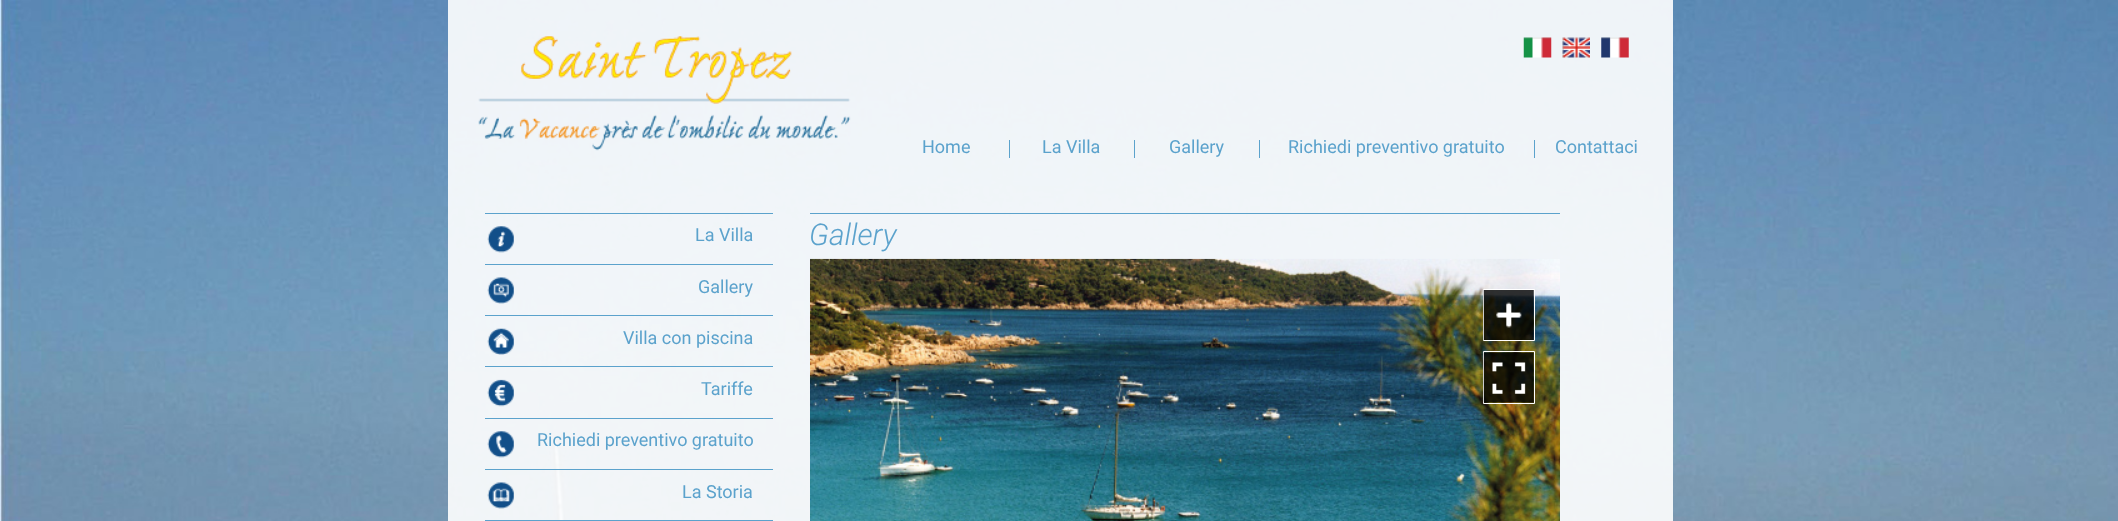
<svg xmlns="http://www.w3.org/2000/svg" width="2118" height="521">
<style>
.a{font:18px Roboto;fill:#5ba2cc}
.b{font:italic 300 30px Roboto;fill:#5ba2cc}
</style>
<rect width="100%" height="100%" fill="#fff"/>
<image href="1.png" x="0" y="0" width="2118" height="521"/>
<path fill="#ffffffe6" d="M448 0h1225v521H448z"/>
<image href="2.png" x="478" y="36" width="373" height="115"/>
<image href="3.png" x="1523" y="37" width="29" height="21"/>
<image href="4.png" x="1562" y="37" width="28" height="21"/>
<image href="5.png" x="1601" y="37" width="28" height="21"/>
<path fill="#5ba2cc" d="M1009 140h1v18H1009z"/>
<path fill="#5ba2cc" d="M1134 140h1v18H1134z"/>
<path fill="#5ba2cc" d="M1259 140h1v18H1259z"/>
<path fill="#5ba2cc" d="M1534 140h1v18H1534z"/>
<path fill="#5ba2cc" d="M485 213h288v1H485z"/>
<image href="6.png" x="487" y="226" width="27" height="27"/>
<path fill="#5ba2cc" d="M485 264h288v1H485z"/>
<image href="7.png" x="487" y="277" width="27" height="27"/>
<path fill="#5ba2cc" d="M485 315h288v1H485z"/>
<image href="8.png" x="487" y="328" width="27" height="27"/>
<path fill="#5ba2cc" d="M485 366h288v1H485z"/>
<image href="9.png" x="487" y="379" width="27" height="28"/>
<path fill="#5ba2cc" d="M485 418h288v1H485z"/>
<image href="10.png" x="487" y="431" width="27" height="27"/>
<path fill="#5ba2cc" d="M485 469h288v1H485z"/>
<image href="11.png" x="487" y="482" width="27" height="27"/>
<path fill="#5ba2cc" d="M485 520h288v1H485z"/>
<path fill="#5ba2cc" d="M810 213h750v1H810z"/>
<image href="12.png" x="810" y="258" width="750" height="263"/>
<path fill="none" stroke="#fff" d="M1483.5 289.5h51v51H1483.5z"/>
<image href="13.png" x="1483" y="290" width="51" height="50"/>
<path fill="none" stroke="#fff" d="M1483.5 351.5h51v52H1483.5z"/>
<image href="14.png" x="1483" y="352" width="51" height="51"/>
<text class="a" x="922" y="153">Home</text>
<text class="a" x="1042" y="153">La Villa</text>
<text class="a" x="1169" y="153">Gallery</text>
<text class="a" x="1288" y="153">Richiedi preventivo gratuito</text>
<text class="a" x="1555" y="153">Contattaci</text>
<text class="a" x="695" y="241">La Villa</text>
<text class="a" x="698" y="293">Gallery</text>
<text class="a" x="623" y="344">Villa con piscina</text>
<text class="a" x="701" y="395">Tariffe</text>
<text class="a" x="537" y="446">Richiedi preventivo gratuito</text>
<text class="a" x="682" y="498">La Storia</text>
<text class="b" x="809" y="245">Gallery</text>
</svg>
